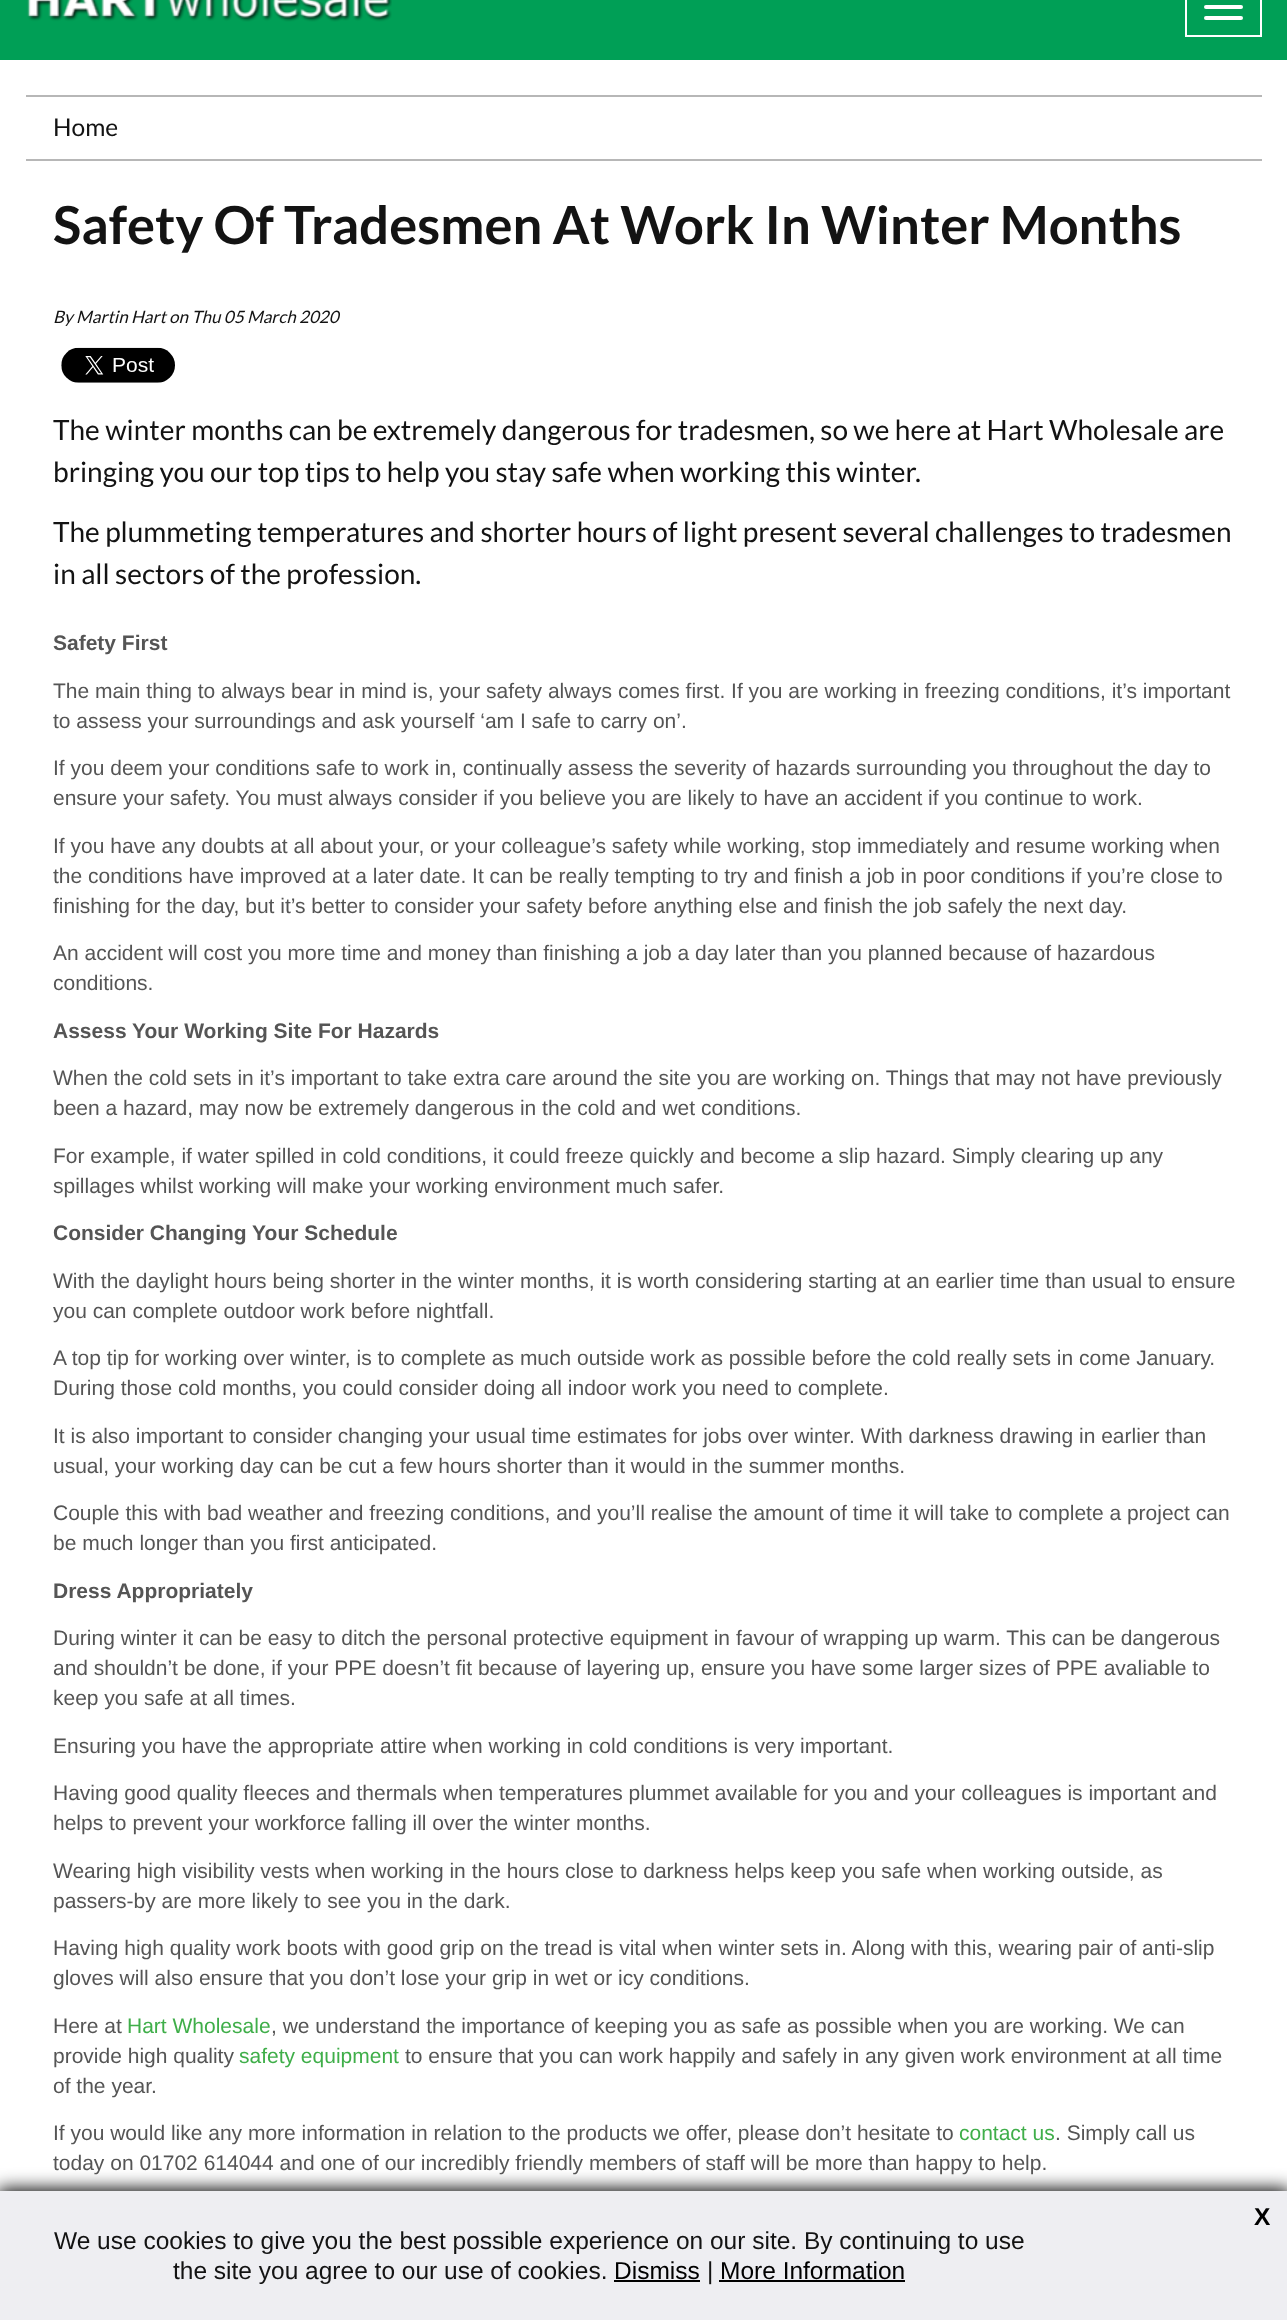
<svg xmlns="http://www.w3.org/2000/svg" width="1287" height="2320">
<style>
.a{font:24.5px Lato;fill:#131313}
.b{font:bold 52.5px Lato;fill:#131313}
.c{font:italic 17.1px Lato;fill:#131313}
.d{font:28px Lato;fill:#131313}
.e{font:bold 21px Liberation Sans;fill:#555}
.f{font:21px Liberation Sans;fill:#555}
.g{font:21px Liberation Sans;fill:#3fae49}
.h{font:bold 24.5px Liberation Sans;fill:#000}
.i{font:24.5px Liberation Sans;fill:#131313}
.j{font:24.5px Liberation Sans;fill:#000}
</style>
<rect width="100%" height="100%" fill="#fff"/>
<path fill="#009f56" d="M0 0h1287v60H0z"/>
<image href="1.png" x="27" y="0" width="365" height="22"/>
<path fill="none" stroke="#fff" stroke-width="2" d="M1186 -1h75v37H1186z"/>
<rect fill="#fff" x="1204" y="5" width="39" height="4" rx="2"/>
<rect fill="#fff" x="1204" y="16" width="39" height="4" rx="2"/>
<path fill="#b7b7b7" d="M26 95h1236v2H26z"/>
<path fill="#b7b7b7" d="M26 159h1236v2H26z"/>
<image href="2.png" x="61" y="347" width="114" height="36"/>
<path fill="#000" filter="blur(9px)" d="M-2 2189h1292v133H-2z"/>
<path fill="#eeeef2" d="M0 2191h1287v129H0z"/>
<path fill="#000" d="M614 2280h86v2H614z"/>
<path fill="#000" d="M719 2280h186v2H719z"/>
<text class="a" x="53" y="136">Home</text>
<text class="b" x="53" y="244">Safety Of Tradesmen At Work In Winter Months</text>
<text class="c" x="53" y="323">By Martin Hart on Thu 05 March 2020</text>
<text class="d" x="53" y="440">The winter months can be extremely dangerous for tradesmen, so we here at Hart Wholesale are</text>
<text class="d" x="53" y="482">bringing you our top tips to help you stay safe when working this winter.</text>
<text class="d" x="53" y="542">The plummeting temperatures and shorter hours of light present several challenges to tradesmen</text>
<text class="d" x="53" y="584">in all sectors of the profession.</text>
<text class="e" x="53" y="650">Safety First</text>
<text class="f" x="53" y="698">The main thing to always bear in mind is, your safety always comes first. If you are working in freezing conditions, it’s important</text>
<text class="f" x="53" y="728">to assess your surroundings and ask yourself ‘am I safe to carry on’.</text>
<text class="f" x="53" y="775">If you deem your conditions safe to work in, continually assess the severity of hazards surrounding you throughout the day to</text>
<text class="f" x="53" y="805">ensure your safety. You must always consider if you believe you are likely to have an accident if you continue to work.</text>
<text class="f" x="53" y="853">If you have any doubts at all about your, or your colleague’s safety while working, stop immediately and resume working when</text>
<text class="f" x="53" y="883">the conditions have improved at a later date. It can be really tempting to try and finish a job in poor conditions if you’re close to</text>
<text class="f" x="53" y="913">finishing for the day, but it’s better to consider your safety before anything else and finish the job safely the next day.</text>
<text class="f" x="53" y="960">An accident will cost you more time and money than finishing a job a day later than you planned because of hazardous</text>
<text class="f" x="53" y="990">conditions.</text>
<text class="e" x="53" y="1038">Assess Your Working Site For Hazards</text>
<text class="f" x="53" y="1085">When the cold sets in it’s important to take extra care around the site you are working on. Things that may not have previously</text>
<text class="f" x="53" y="1115">been a hazard, may now be extremely dangerous in the cold and wet conditions.</text>
<text class="f" x="53" y="1163">For example, if water spilled in cold conditions, it could freeze quickly and become a slip hazard. Simply clearing up any</text>
<text class="f" x="53" y="1193">spillages whilst working will make your working environment much safer.</text>
<text class="e" x="53" y="1240">Consider Changing Your Schedule</text>
<text class="f" x="53" y="1288">With the daylight hours being shorter in the winter months, it is worth considering starting at an earlier time than usual to ensure</text>
<text class="f" x="53" y="1318">you can complete outdoor work before nightfall.</text>
<text class="f" x="53" y="1365">A top tip for working over winter, is to complete as much outside work as possible before the cold really sets in come January.</text>
<text class="f" x="53" y="1395">During those cold months, you could consider doing all indoor work you need to complete.</text>
<text class="f" x="53" y="1443">It is also important to consider changing your usual time estimates for jobs over winter. With darkness drawing in earlier than</text>
<text class="f" x="53" y="1473">usual, your working day can be cut a few hours shorter than it would in the summer months.</text>
<text class="f" x="53" y="1520">Couple this with bad weather and freezing conditions, and you’ll realise the amount of time it will take to complete a project can</text>
<text class="f" x="53" y="1550">be much longer than you first anticipated.</text>
<text class="e" x="53" y="1598">Dress Appropriately</text>
<text class="f" x="53" y="1645">During winter it can be easy to ditch the personal protective equipment in favour of wrapping up warm. This can be dangerous</text>
<text class="f" x="53" y="1675">and shouldn’t be done, if your PPE doesn’t fit because of layering up, ensure you have some larger sizes of PPE avaliable to</text>
<text class="f" x="53" y="1705">keep you safe at all times.</text>
<text class="f" x="53" y="1753">Ensuring you have the appropriate attire when working in cold conditions is very important.</text>
<text class="f" x="53" y="1800">Having good quality fleeces and thermals when temperatures plummet available for you and your colleagues is important and</text>
<text class="f" x="53" y="1830">helps to prevent your workforce falling ill over the winter months.</text>
<text class="f" x="53" y="1878">Wearing high visibility vests when working in the hours close to darkness helps keep you safe when working outside, as</text>
<text class="f" x="53" y="1908">passers-by are more likely to see you in the dark.</text>
<text class="f" x="53" y="1955">Having high quality work boots with good grip on the tread is vital when winter sets in. Along with this, wearing pair of anti-slip</text>
<text class="f" x="53" y="1985">gloves will also ensure that you don’t lose your grip in wet or icy conditions.</text>
<text class="f" x="53" y="2033">Here at</text>
<text class="g" x="127" y="2033">Hart Wholesale</text>
<text class="f" x="271" y="2033">, we understand the importance of keeping you as safe as possible when you are working. We can</text>
<text class="f" x="53" y="2063">provide high quality</text>
<text class="g" x="239" y="2063">safety equipment</text>
<text class="f" x="405" y="2063">to ensure that you can work happily and safely in any given work environment at all time</text>
<text class="f" x="53" y="2093">of the year.</text>
<text class="f" x="53" y="2140">If you would like any more information in relation to the products we offer, please don’t hesitate to</text>
<text class="g" x="959" y="2140">contact us</text>
<text class="f" x="1055" y="2140">. Simply call us</text>
<text class="f" x="53" y="2170">today on 01702 614044 and one of our incredibly friendly members of staff will be more than happy to help.</text>
<text class="h" x="1254" y="2225">X</text>
<text class="i" x="54" y="2249">We use cookies to give you the best possible experience on our site. By continuing to use</text>
<text class="i" x="173" y="2279">the site you agree to our use of cookies.</text>
<text class="j" x="614" y="2279">Dismiss</text>
<text class="i" x="707" y="2279">|</text>
<text class="j" x="720" y="2279">More Information</text>
</svg>
